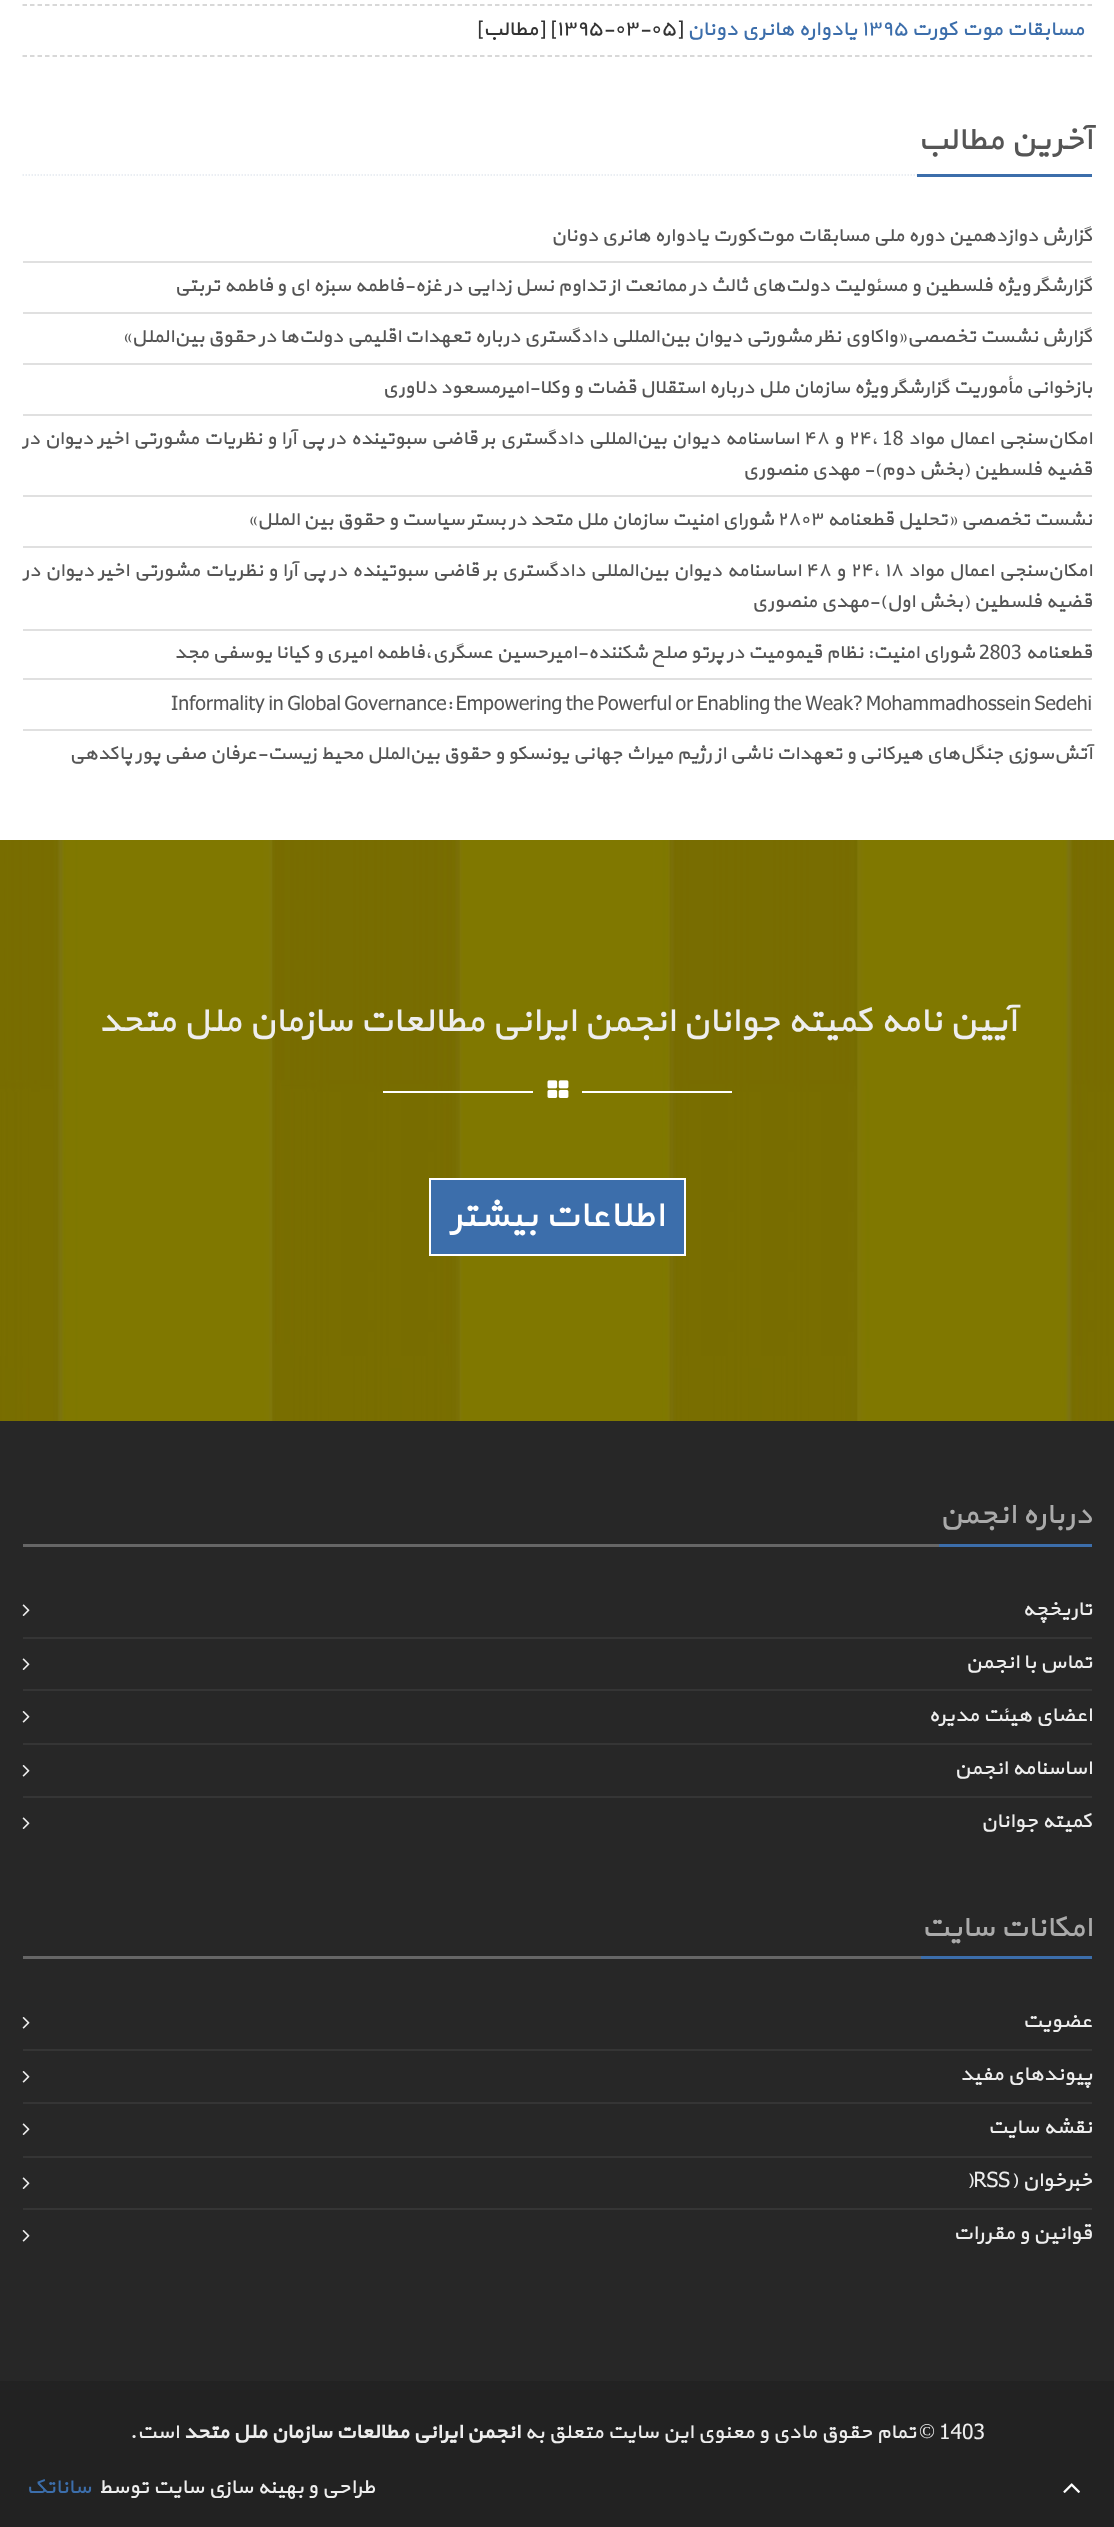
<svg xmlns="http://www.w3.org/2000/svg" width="1114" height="2527">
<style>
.a{font:21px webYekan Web;direction:rtl;fill:#3c6eab}
.b{font:21px webYekan Web;fill:#3c6eab}
.c{font:21px webYekan Web;fill:#333}
.d{font:21px webYekan Web;direction:rtl;fill:#333}
.e{font:33px webYekan Web;direction:rtl;fill:#555}
.f{font:19.5px webYekan Web;direction:rtl;fill:#555}
.g{font:19.5px webYekan Web;fill:#555}
.h{font:36px webYekan Web;direction:rtl;fill:#eee}
.i{font:37.5px webYekan Web;direction:rtl;fill:#fff}
.j{font:30px webYekan Web;direction:rtl;fill:#aaa}
.k{font:21px webYekan Web;direction:rtl;fill:#eee}
.l{font:21px webYekan Web;fill:#eee}
.m{font:21px Liberation Serif;direction:rtl;fill:#eee}
.n{font:bold 21px webYekan Web;direction:rtl;fill:#eee}
</style>
<rect width="100%" height="100%" fill="#fff"/>
<path fill="none" stroke="#ccc" stroke-width="1.5" stroke-dasharray="4.5 3" d="M22.5 5h1069.5"/>
<path fill="none" stroke="#ccc" stroke-width="1.5" stroke-dasharray="4.5 3" d="M22.5 56h1069.5"/>
<path fill="none" stroke="#e4e9f0" stroke-width="1.5" stroke-dasharray="1.5 1.5" d="M22.5 175h1069.5"/>
<path fill="#3c6eab" d="M917 174h175v3H917z"/>
<path fill="#e0e0e0" d="M23 261h1069v2H23z"/>
<path fill="#e0e0e0" d="M23 312h1069v2H23z"/>
<path fill="#e0e0e0" d="M23 363h1069v2H23z"/>
<path fill="#e0e0e0" d="M23 414h1069v2H23z"/>
<path fill="#e0e0e0" d="M23 495h1069v2H23z"/>
<path fill="#e0e0e0" d="M23 546h1069v2H23z"/>
<path fill="#e0e0e0" d="M23 629h1069v2H23z"/>
<path fill="#e0e0e0" d="M23 678h1069v2H23z"/>
<path fill="#e0e0e0" d="M23 729h1069v2H23z"/>
<image href="1.png" x="0" y="840" width="1114" height="581"/>
<path fill="#fff" d="M582 1091h150v2H582z"/>
<image href="2.png" x="547" y="1080" width="22" height="18"/>
<path fill="#fff" d="M383 1091h150v2H383z"/>
<path fill="#3c6eab" stroke="#fff" stroke-width="2" d="M430 1179h255v76H430z"/>
<path fill="#272727" d="M0 1421h1114v960H0z"/>
<path fill="#666" d="M23 1544h916v3H23z"/>
<path fill="#3c6eab" d="M939 1544h153v3H939z"/>
<image href="3.png" x="22" y="1604" width="8" height="12"/>
<path fill="#353535" d="M23 1637h1069v2H23z"/>
<image href="3.png" x="22" y="1658" width="8" height="12"/>
<path fill="#353535" d="M23 1689h1069v2H23z"/>
<image href="4.png" x="22" y="1711" width="8" height="12"/>
<path fill="#353535" d="M23 1743h1069v2H23z"/>
<image href="4.png" x="22" y="1765" width="8" height="12"/>
<path fill="#353535" d="M23 1796h1069v2H23z"/>
<image href="3.png" x="22" y="1817" width="8" height="12"/>
<path fill="#666" d="M23 1956h898v3H23z"/>
<path fill="#3c6eab" d="M921 1956h171v3H921z"/>
<image href="4.png" x="22" y="2017" width="8" height="12"/>
<path fill="#353535" d="M23 2049h1069v2H23z"/>
<image href="4.png" x="22" y="2071" width="8" height="12"/>
<path fill="#353535" d="M23 2102h1069v2H23z"/>
<image href="3.png" x="22" y="2123" width="8" height="12"/>
<path fill="#353535" d="M23 2156h1069v2H23z"/>
<image href="3.png" x="22" y="2177" width="8" height="12"/>
<path fill="#353535" d="M23 2208h1069v2H23z"/>
<image href="4.png" x="22" y="2230" width="8" height="12"/>
<path fill="#222" d="M0 2381h1114v146H0z"/>
<image href="5.png" x="1063" y="2483" width="17" height="10"/>
<text class="a" x="1084" y="35">مسابقات موت کورت</text>
<text class="b" x="861" y="35">۱۳۹۵</text>
<text class="a" x="857" y="35">یادواره هانری دونان</text>
<text class="c" x="549" y="35">[۱۳۹۵-۰۳-۰۵]</text>
<text class="d" x="545" y="35">[مطالب]</text>
<text class="e" x="1092" y="149">آخرین مطالب</text>
<text class="f" x="1092" y="241">گزارش دوازدهمین دوره ملی مسابقات موت‌کورت یادواره هانری دونان</text>
<text class="f" x="1092" y="291">گزارشگر ویژه فلسطین و مسئولیت دولت‌های ثالث در ممانعت از تداوم نسل زدایی در غزه-فاطمه سبزه ای و</text>
<text class="f" x="273" y="291">فاطمه تربتی</text>
<text class="f" x="1092" y="342">گزارش نشست تخصصی«واکاوی نظر مشورتی دیوان بین‌المللی دادگستری درباره تعهدات اقلیمی دولت‌ها در حقوق بین‌الملل»</text>
<text class="f" x="1092" y="393">بازخوانی مأموریت گزارشگر ویژه سازمان ملل درباره استقلال قضات و وکلا-امیرمسعود دلاوری</text>
<text class="f" x="1092" y="444" word-spacing="0.9">امکان‌سنجی اعمال مواد</text>
<text class="g" x="882" y="444">18</text>
<text class="g" x="848" y="444">۲۴،</text>
<text class="f" x="843" y="444">و</text>
<text class="g" x="803" y="444">۴۸</text>
<text class="f" x="799" y="444" word-spacing="0.9">اساسنامه دیوان بین‌المللی دادگستری بر قاضی سبوتینده در پی آرا و نظریات مشورتی اخیر دیوان در</text>
<text class="f" x="1092" y="475">قضیه فلسطین (بخش دوم)- مهدی منصوری</text>
<text class="f" x="1092" y="525">نشست تخصصی «تحلیل قطعنامه</text>
<text class="g" x="777" y="525">۲۸۰۳</text>
<text class="f" x="774" y="525">شورای امنیت سازمان ملل متحد در بستر سیاست و حقوق بین الملل»</text>
<text class="f" x="1092" y="576" word-spacing="1">امکان‌سنجی اعمال مواد</text>
<text class="g" x="884" y="576">۱۸</text>
<text class="g" x="850" y="576">۲۴،</text>
<text class="f" x="845" y="576">و</text>
<text class="g" x="805" y="576">۴۸</text>
<text class="f" x="801" y="576" word-spacing="1">اساسنامه دیوان بین‌المللی دادگستری بر قاضی سبوتینده در پی آرا و نظریات مشورتی اخیر دیوان در</text>
<text class="f" x="1092" y="607">قضیه فلسطین (بخش اول)-مهدی منصوری</text>
<text class="f" x="1092" y="658">قطعنامه</text>
<text class="g" x="979" y="658">2803</text>
<text class="f" x="975" y="658">شورای امنیت: نظام قیمومیت در پرتو صلح شکننده-امیرحسین عسگری،فاطمه امیری و کیانا یوسفی مجد</text>
<text class="g" x="171" y="709">Informality in Global Governance: Empowering the Powerful or Enabling the Weak? Mohammadhossein Sedehi</text>
<text class="f" x="1092" y="759">آتش‌سوزی جنگل‌های هیرکانی و تعهدات ناشی از رژیم میراث جهانی یونسکو و حقوق بین‌الملل محیط زیست-عرفان صفی پور پاکدهی</text>
<text class="h" x="1016" y="1031">آیین نامه کمیته جوانان انجمن ایرانی مطالعات سازمان ملل متحد</text>
<text class="i" x="664" y="1226">اطلاعات بیشتر</text>
<text class="j" x="1092" y="1523">درباره انجمن</text>
<text class="k" x="1092" y="1615">تاریخچه</text>
<text class="k" x="1092" y="1668">تماس با انجمن</text>
<text class="k" x="1092" y="1721">اعضای هیئت مدیره</text>
<text class="k" x="1092" y="1774">اساسنامه انجمن</text>
<text class="k" x="1092" y="1827">کمیته جوانان</text>
<text class="j" x="1092" y="1936">امکانات سایت</text>
<text class="k" x="1092" y="2027">عضویت</text>
<text class="k" x="1092" y="2080">پیوندهای مفید</text>
<text class="k" x="1092" y="2133">نقشه سایت</text>
<text class="k" x="1092" y="2186">خبرخوان (</text>
<text class="l" x="966" y="2186">)RSS</text>
<text class="k" x="1092" y="2239">قوانین و مقررات</text>
<text class="l" x="939" y="2438">1403</text>
<text class="m" x="935" y="2438">©</text>
<text class="k" x="916" y="2438">تمام حقوق مادی و معنوی این سایت متعلق به</text>
<text class="n" x="520" y="2438">انجمن ایرانی مطالعات سازمان ملل متحد</text>
<text class="k" x="179" y="2438">است.</text>
<text class="k" x="375" y="2493">طراحی و بهینه سازی سایت توسط</text>
<text class="a" x="91" y="2493">ساناتک</text>
</svg>
